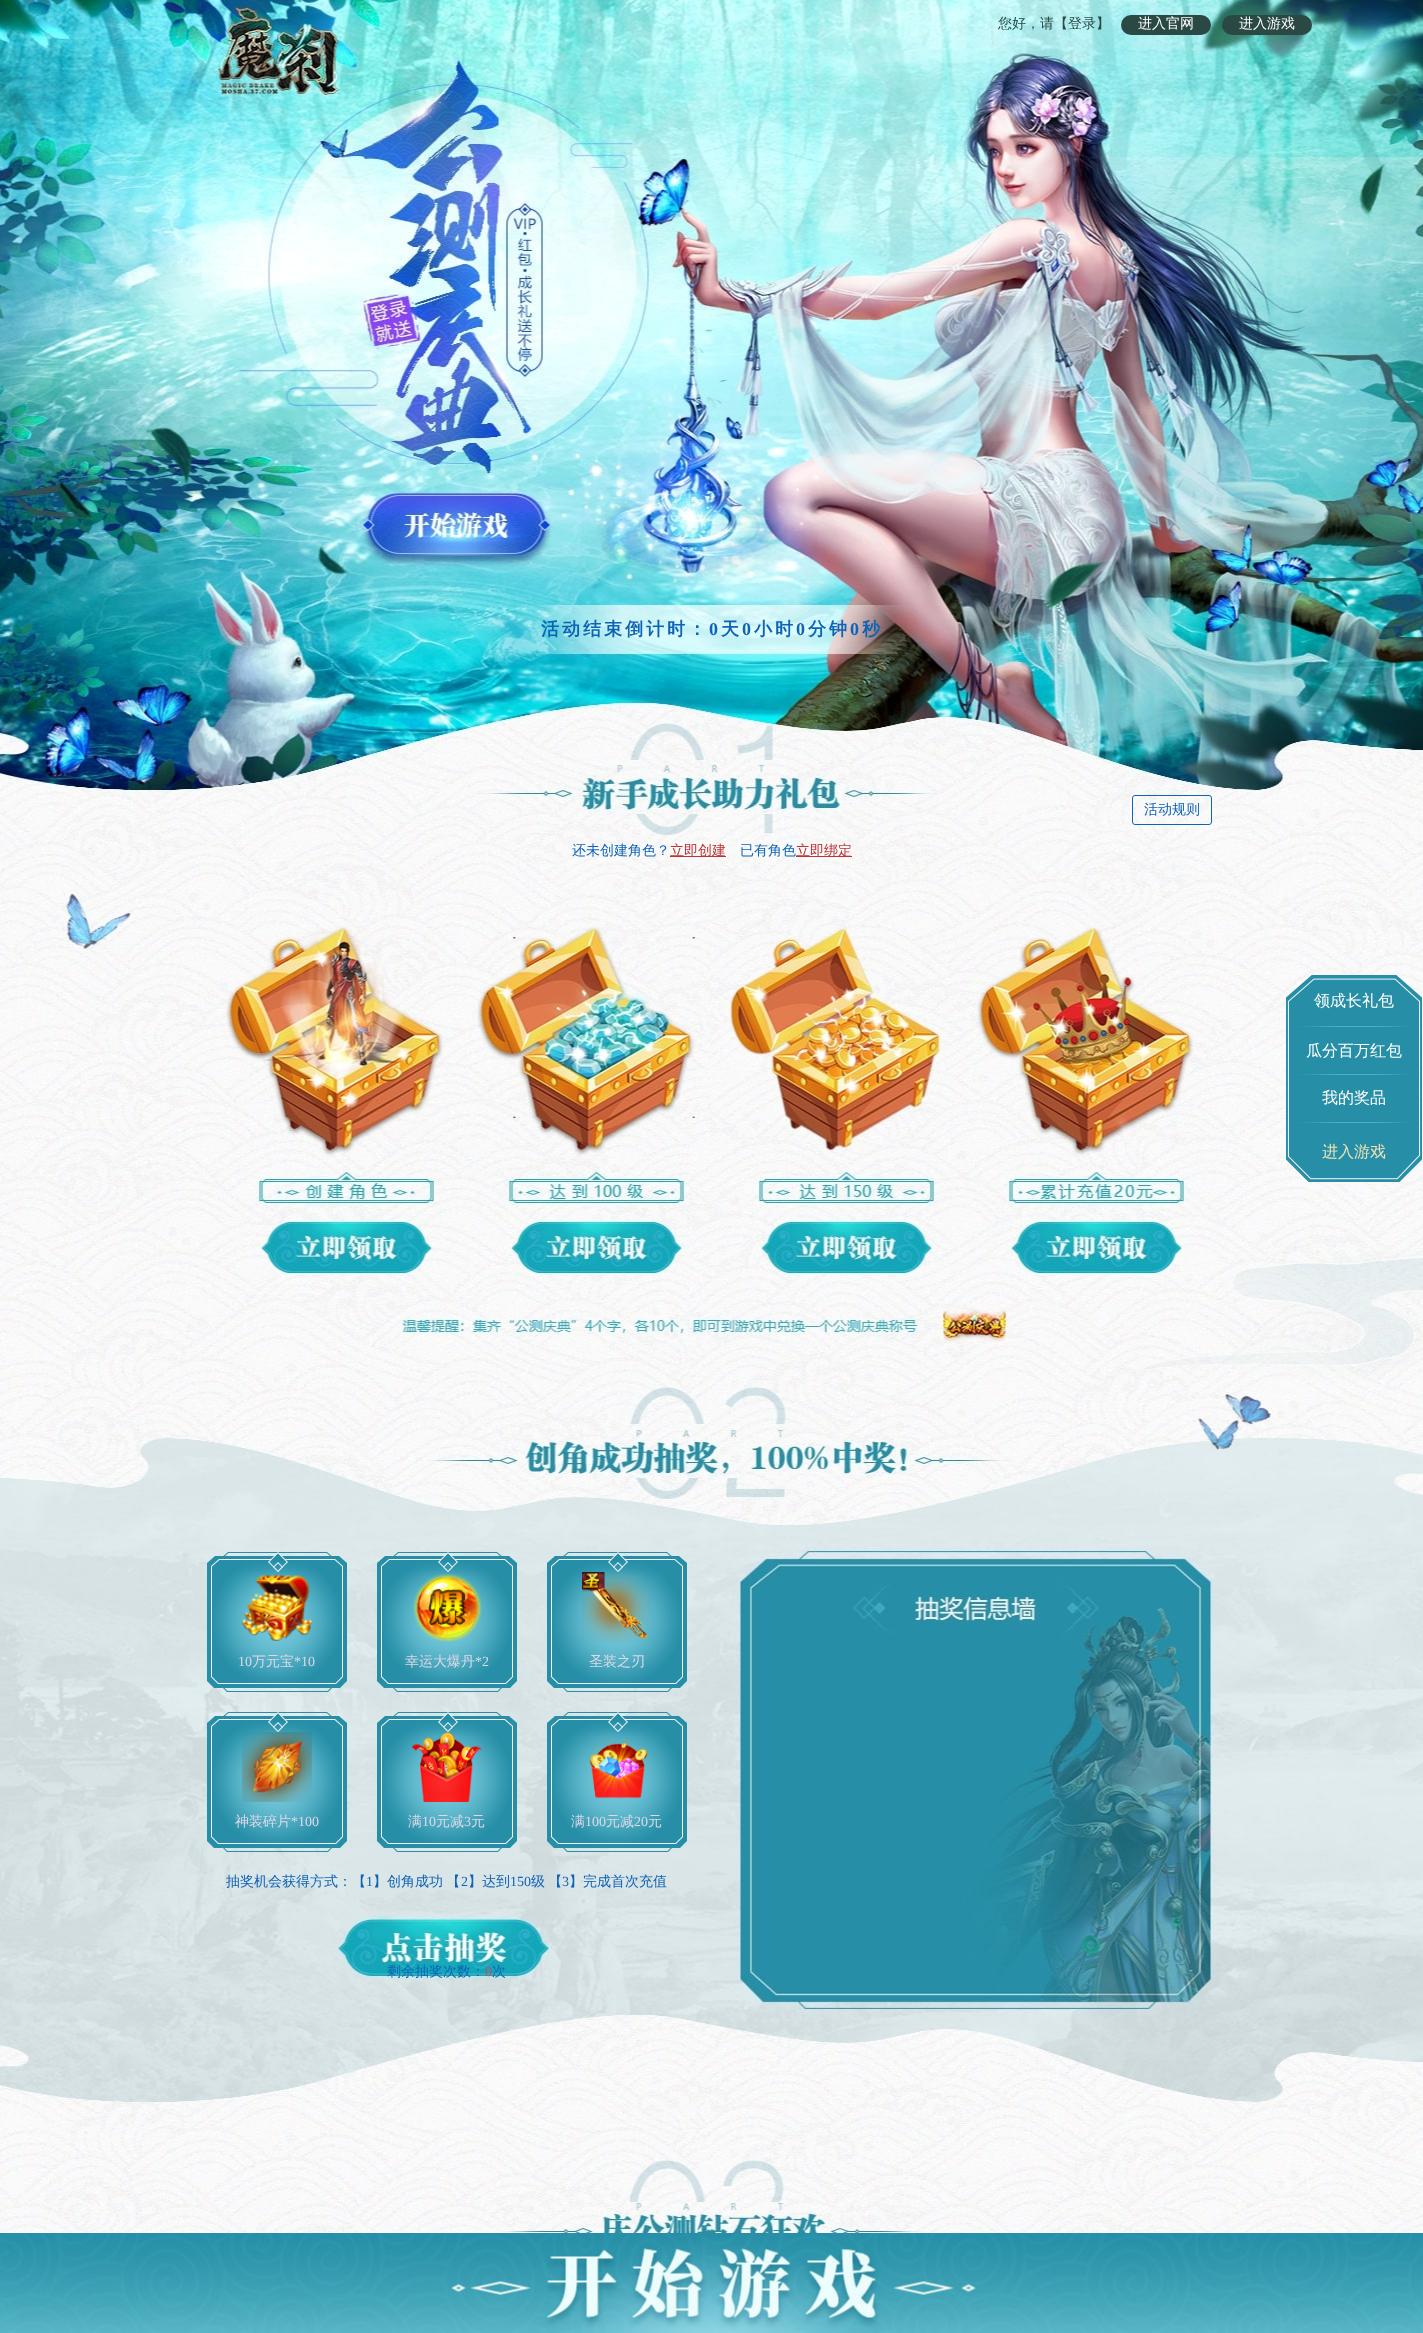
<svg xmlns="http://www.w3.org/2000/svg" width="1423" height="2333">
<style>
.a{font:500 14px WenQuanYi Zen Hei;fill:#2a4945}
.b{font:500 14px WenQuanYi Zen Hei;fill:#fff}
.c{font:bold 18px WenQuanYi Zen Hei;letter-spacing:3px;fill:#0e63b5}
.d{font:bold 18px Liberation Serif;letter-spacing:3px;fill:#0e63b5}
.e{font:500 14px WenQuanYi Zen Hei;fill:#0e63b5}
.f{font:500 14px WenQuanYi Zen Hei;fill:#bd3334}
.g{font:14px Liberation Serif;fill:#dfd8e6}
.h{font:500 14px WenQuanYi Zen Hei;fill:#dfd8e6}
.i{font:14px Liberation Serif;fill:#0e63b5}
.j{font:14px Liberation Serif;fill:#ca495f}
.k{font:500 16px WenQuanYi Zen Hei;fill:#fff}
.l{font:500 16px WenQuanYi Zen Hei;fill:#ede2b5}
</style>
<rect width="100%" height="100%" fill="#fff"/>
<image href="1.png" x="0" y="0" width="1423" height="2233"/>
<rect fill="#2a4945" x="1121" y="15" width="90" height="20" rx="10"/>
<rect fill="#2a4945" x="1222" y="15" width="90" height="20" rx="10"/>
<rect fill="none" stroke="#0e63b5" x="1132.5" y="795.5" width="79" height="29" rx="2.5"/>
<path fill="#bd3334" d="M670 856h56v1H670z"/>
<path fill="#bd3334" d="M796 856h56v1H796z"/>
<image href="2.png" x="207" y="1552" width="140" height="140"/>
<image href="3.png" x="242" y="1575" width="70" height="66"/>
<image href="4.png" x="377" y="1552" width="140" height="140"/>
<image href="5.png" x="412" y="1573" width="70" height="69"/>
<image href="6.png" x="547" y="1552" width="140" height="140"/>
<image href="7.png" x="582" y="1572" width="70" height="70"/>
<image href="8.png" x="207" y="1712" width="140" height="140"/>
<image href="9.png" x="242" y="1732" width="70" height="70"/>
<image href="10.png" x="377" y="1712" width="140" height="140"/>
<image href="11.png" x="412" y="1732" width="70" height="70"/>
<image href="12.png" x="547" y="1712" width="140" height="140"/>
<image href="13.png" x="585" y="1735" width="64" height="64"/>
<image href="14.png" x="1286" y="975" width="136" height="207"/>
<image href="15.png" x="0" y="2233" width="1423" height="100"/>
<text class="a" x="998" y="28">您好，请【登录】</text>
<text class="b" x="1138" y="28">进入官网</text>
<text class="b" x="1239" y="28">进入游戏</text>
<text class="c" x="541" y="635">活动结束倒计时：</text>
<text class="d" x="709" y="635">0</text>
<text class="c" x="721" y="635">天</text>
<text class="d" x="742" y="635">0</text>
<text class="c" x="754" y="635">小时</text>
<text class="d" x="796" y="635">0</text>
<text class="c" x="808" y="635">分钟</text>
<text class="d" x="850" y="635">0</text>
<text class="c" x="862" y="635">秒</text>
<text class="e" x="1144" y="814">活动规则</text>
<text class="e" x="572" y="855">还未创建角色？</text>
<text class="f" x="670" y="855">立即创建</text>
<text class="e" x="740" y="855">已有角色</text>
<text class="f" x="796" y="855">立即绑定</text>
<text class="g" x="238" y="1666">10</text>
<text class="h" x="252" y="1666">万元宝</text>
<text class="g" x="294" y="1666">*10</text>
<text class="h" x="405" y="1666">幸运大爆丹</text>
<text class="g" x="475" y="1666">*2</text>
<text class="h" x="589" y="1666">圣装之刃</text>
<text class="h" x="235" y="1826">神装碎片</text>
<text class="g" x="291" y="1826">*100</text>
<text class="h" x="408" y="1826">满</text>
<text class="g" x="422" y="1826">10</text>
<text class="h" x="436" y="1826">元减</text>
<text class="g" x="464" y="1826">3</text>
<text class="h" x="471" y="1826">元</text>
<text class="h" x="571" y="1826">满</text>
<text class="g" x="585" y="1826">100</text>
<text class="h" x="606" y="1826">元减</text>
<text class="g" x="634" y="1826">20</text>
<text class="h" x="648" y="1826">元</text>
<text class="e" x="226" y="1886">抽奖机会获得方式：【</text>
<text class="i" x="366" y="1886">1</text>
<text class="e" x="373" y="1886" word-spacing="-1">】创角成功 【</text>
<text class="i" x="461" y="1886">2</text>
<text class="e" x="468" y="1886">】达到</text>
<text class="i" x="510" y="1886">150</text>
<text class="e" x="531" y="1886" word-spacing="-1">级 【</text>
<text class="i" x="562" y="1886">3</text>
<text class="e" x="569" y="1886">】完成首次充值</text>
<text class="e" x="387" y="1976">剩余抽奖次数：</text>
<text class="j" x="485" y="1976">0</text>
<text class="e" x="492" y="1976">次</text>
<text class="k" x="1314" y="1006">领成长礼包</text>
<text class="k" x="1306" y="1056">瓜分百万红包</text>
<text class="k" x="1322" y="1103">我的奖品</text>
<text class="l" x="1322" y="1157">进入游戏</text>
</svg>
